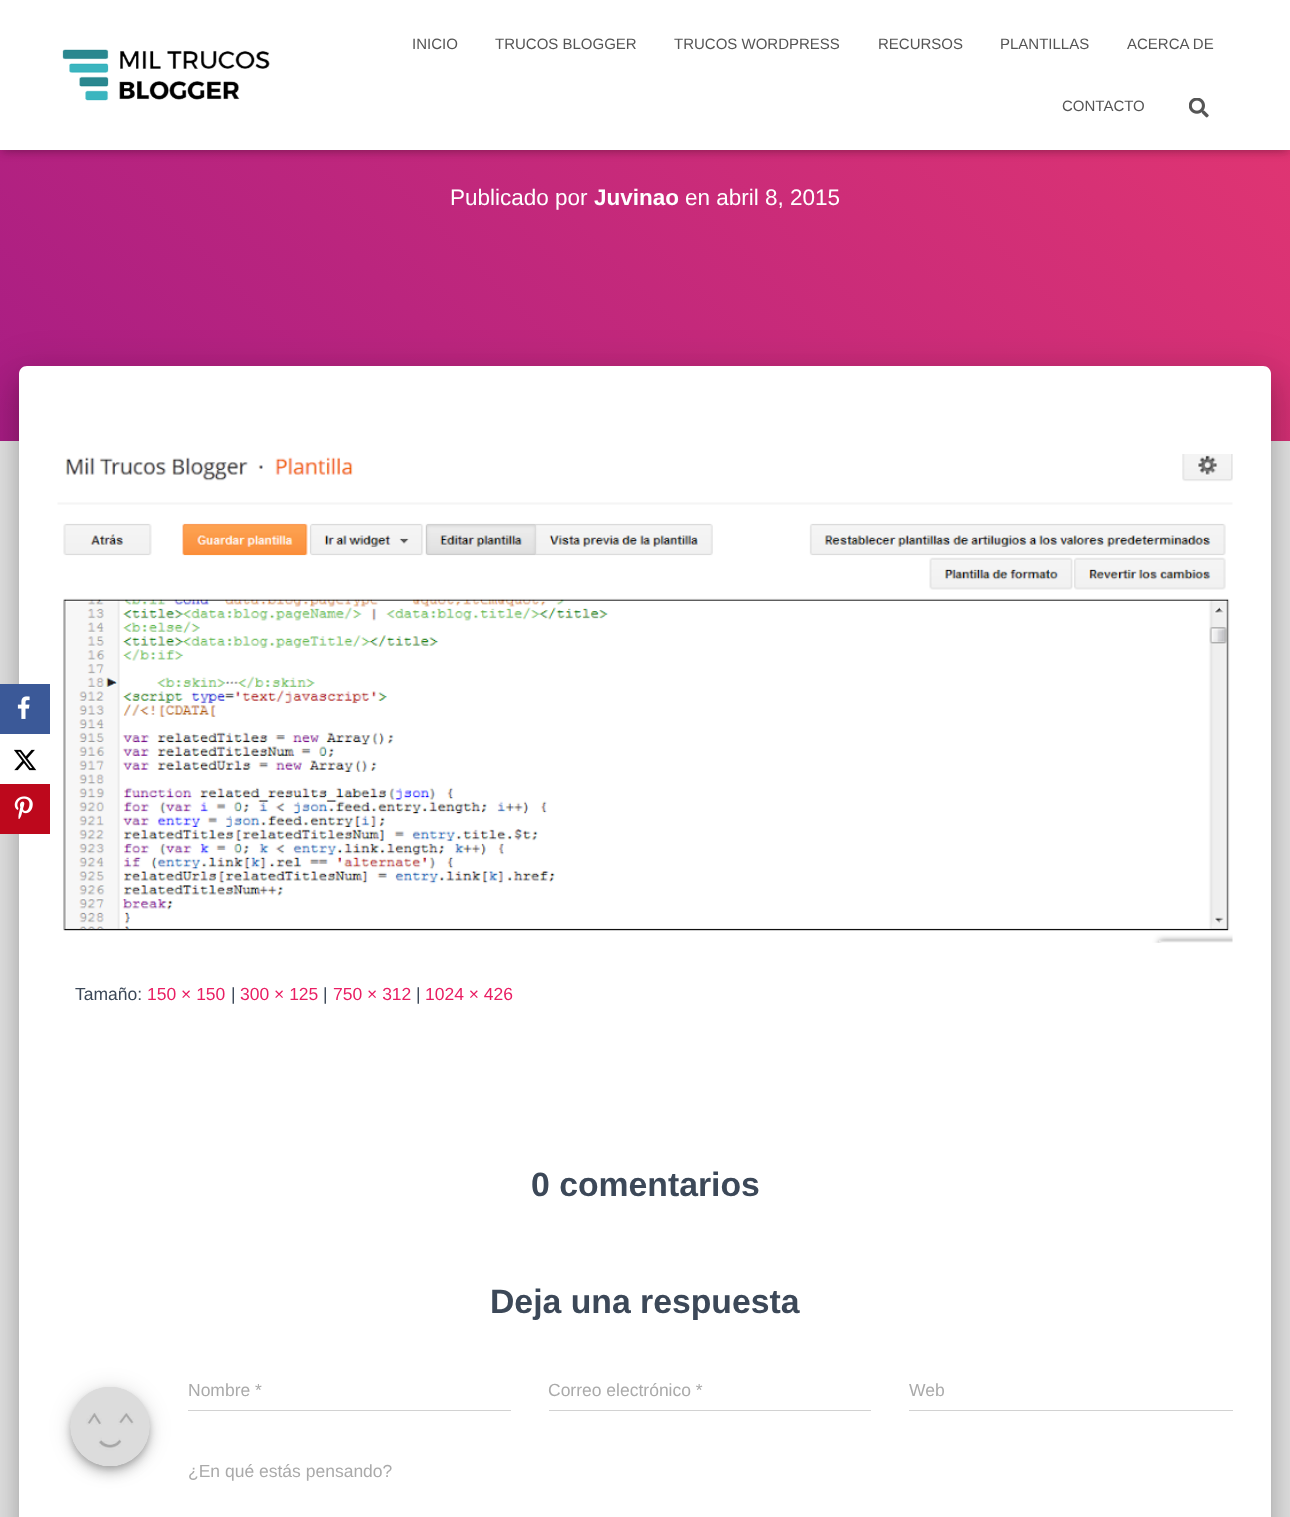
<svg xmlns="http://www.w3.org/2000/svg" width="1290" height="1517">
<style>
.a{font:15px Liberation Sans;fill:#555}
.b{font:22.5px Liberation Sans;fill:#fff}
.c{font:bold 22.5px Liberation Sans;fill:#fff}
.d{font:17.5px Liberation Sans;fill:#3c4858}
.e{font:17.5px Liberation Sans;fill:#e91e63}
.f{font:bold 33.75px Liberation Sans;fill:#3c4858}
.g{font:17.5px Liberation Sans;fill:#aaa}
</style>
<defs>
<linearGradient id="g1" gradientUnits="userSpaceOnUse" x1="173" y1="614" x2="1117" y2="-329"><stop offset="0" stop-color="#a81d84"/><stop offset="1" stop-color="#ea396f"/></linearGradient>
</defs>
<rect width="100%" height="100%" fill="#e5e5e5"/>
<path fill="url(#g1)" d="M0 150h1290v291H0z"/>
<rect fill="#00000033" filter="blur(6px)" x="25" y="383" width="1240" height="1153" rx="1"/>
<rect fill="#0000001f" filter="blur(19px)" x="13" y="368" width="1265" height="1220" rx="14"/>
<rect fill="#00000024" filter="blur(15px)" x="16" y="384" width="1258" height="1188" rx="10"/>
<path fill="#fff" d="M27 366h1236c4.5 0 8 3.5 8 8v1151h-1252v-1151c0-4.5 3.5-8 8-8z"/>
<path fill="#3b5998" d="M0 684h50v50H0z"/>
<image href="1.png" x="17" y="696" width="13" height="23"/>
<path fill="#fff" d="M0 734h19v50H0z"/>
<image href="2.png" x="14" y="749" width="23" height="22"/>
<path fill="#bd081c" d="M0 784h50v50H0z"/>
<image href="3.png" x="14" y="796" width="19" height="23"/>
<path fill="#0000001a" filter="blur(3px)" d="M3 8h1285v145H3z"/>
<path fill="#0000001f" filter="blur(6px)" d="M0 1h1290v150H0z"/>
<path fill="#0000006b" filter="blur(6px)" d="M8 9h1275v135H8z"/>
<path fill="#fff" d="M0 0h1290v150H0z"/>
<image href="4.png" x="62" y="49" width="208" height="52"/>
<image href="5.png" x="1189" y="98" width="20" height="20"/>
<image href="6.png" x="57" y="454" width="1176" height="489"/>
<rect fill="#00000033" filter="blur(3px)" x="71" y="1391" width="78" height="78" rx="39"/>
<rect fill="#0000001f" filter="blur(11px)" x="70" y="1388" width="80" height="80" rx="40"/>
<rect fill="#00000024" filter="blur(6px)" x="70" y="1394" width="80" height="80" rx="40"/>
<image href="7.png" x="70" y="1387" width="80" height="79"/>
<path fill="#d2d2d2" d="M188 1410h323v1H188z"/>
<path fill="#d2d2d2" d="M549 1410h322v1H549z"/>
<path fill="#d2d2d2" d="M909 1410h324v1H909z"/>
<text class="a" x="412" y="49">INICIO</text>
<text class="a" x="495" y="49">TRUCOS BLOGGER</text>
<text class="a" x="674" y="49">TRUCOS WORDPRESS</text>
<text class="a" x="878" y="49">RECURSOS</text>
<text class="a" x="1000" y="49">PLANTILLAS</text>
<text class="a" x="1127" y="49">ACERCA DE</text>
<text class="a" x="1062" y="111">CONTACTO</text>
<text class="b" x="450" y="205">Publicado por</text>
<text class="c" x="594" y="205">Juvinao</text>
<text class="b" x="685" y="205">en abril 8, 2015</text>
<text class="d" x="75" y="1000">Tamaño:</text>
<text class="e" x="147" y="1000">150 × 150</text>
<text class="d" x="231" y="1000">|</text>
<text class="e" x="240" y="1000">300 × 125</text>
<text class="d" x="323" y="1000">|</text>
<text class="e" x="333" y="1000">750 × 312</text>
<text class="d" x="416" y="1000">|</text>
<text class="e" x="425" y="1000">1024 × 426</text>
<text class="f" x="531" y="1196">0 comentarios</text>
<text class="f" x="490" y="1313">Deja una respuesta</text>
<text class="g" x="188" y="1396">Nombre *</text>
<text class="g" x="548" y="1396">Correo electrónico *</text>
<text class="g" x="909" y="1396">Web</text>
<text class="g" x="188" y="1477">¿En qué estás pensando?</text>
</svg>
